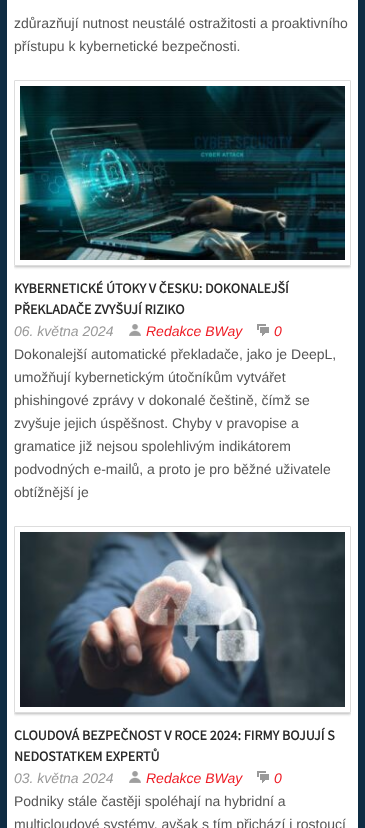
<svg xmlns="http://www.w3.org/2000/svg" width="365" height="828">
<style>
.a{font:14px Liberation Sans;fill:#555}
.b{font:bold 14px Source Sans Pro;fill:#2a2a2a}
.c{font:italic 14px Liberation Sans;fill:#999}
.d{font:italic 14px Liberation Sans;fill:#ee1c25}
</style>
<defs>
<clipPath id="clip1"><path d="M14 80h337v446H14z"/></clipPath>
<clipPath id="clip2"><path d="M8 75h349v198h-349zm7 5h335c.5 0 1 .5 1 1v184c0 .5-.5 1-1 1h-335c-.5 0-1-.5-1-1v-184c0-.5 .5-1 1-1z" clip-rule="evenodd"/></clipPath>
<clipPath id="clip3"><path d="M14 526h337v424H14z"/></clipPath>
<clipPath id="clip4"><path d="M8 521h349v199h-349zm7 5h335c.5 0 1 .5 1 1v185c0 .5-.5 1-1 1h-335c-.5 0-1-.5-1-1v-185c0-.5 .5-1 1-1z" clip-rule="evenodd"/></clipPath>
</defs>
<rect width="100%" height="100%" fill="#11334e"/>
<path fill="#00000033" filter="blur(17.5px)" d="M-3 -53h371v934H-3z"/>
<path fill="#fff" d="M7 0h351v828H7z"/>
<g clip-path="url(#clip1)">
<g clip-path="url(#clip2)">
<rect fill="#b5b5b5" filter="blur(1.5px)" x="14" y="81" width="337" height="186" rx="1"/>
</g>
</g>
<rect fill="none" stroke="#ddd" x="14.5" y="80.5" width="336" height="185" rx="0.5"/>
<image href="1.png" x="20" y="86" width="325" height="174"/>
<image href="2.png" x="129" y="324" width="12" height="12"/>
<image href="3.png" x="257" y="324" width="12" height="12"/>
<g clip-path="url(#clip3)">
<g clip-path="url(#clip4)">
<rect fill="#b5b5b5" filter="blur(1.5px)" x="14" y="527" width="337" height="187" rx="1"/>
</g>
</g>
<rect fill="none" stroke="#ddd" x="14.5" y="526.5" width="336" height="186" rx="0.5"/>
<image href="4.png" x="20" y="532" width="325" height="175"/>
<image href="2.png" x="129" y="771" width="12" height="12"/>
<image href="3.png" x="257" y="771" width="12" height="12"/>
<text class="a" x="14" y="28">zdůrazňují nutnost neustálé ostražitosti a proaktivního</text>
<text class="a" x="14" y="51">přístupu k kybernetické bezpečnosti.</text>
<text class="b" x="14" y="293">KYBERNETICKÉ ÚTOKY V ČESKU: DOKONALEJŠÍ</text>
<text class="b" x="14" y="314">PŘEKLADAČE ZVYŠUJÍ RIZIKO</text>
<text class="c" x="14" y="336">06. května 2024</text>
<text class="d" x="146" y="336">Redakce BWay</text>
<text class="d" x="274" y="336">0</text>
<text class="a" x="14" y="359">Dokonalejší automatické překladače, jako je DeepL,</text>
<text class="a" x="14" y="382">umožňují kybernetickým útočníkům vytvářet</text>
<text class="a" x="14" y="405">phishingové zprávy v dokonalé češtině, čímž se</text>
<text class="a" x="14" y="428">zvyšuje jejich úspěšnost. Chyby v pravopise a</text>
<text class="a" x="14" y="451">gramatice již nejsou spolehlivým indikátorem</text>
<text class="a" x="14" y="474">podvodných e-mailů, a proto je pro běžné uživatele</text>
<text class="a" x="14" y="497">obtížnější je</text>
<text class="b" x="14" y="740">CLOUDOVÁ BEZPEČNOST V ROCE 2024: FIRMY BOJUJÍ S</text>
<text class="b" x="14" y="761">NEDOSTATKEM EXPERTŮ</text>
<text class="c" x="14" y="783">03. května 2024</text>
<text class="d" x="146" y="783">Redakce BWay</text>
<text class="d" x="274" y="783">0</text>
<text class="a" x="14" y="806">Podniky stále častěji spoléhají na hybridní a</text>
<text class="a" x="14" y="829">multicloudové systémy, avšak s tím přichází i rostoucí</text>
</svg>
